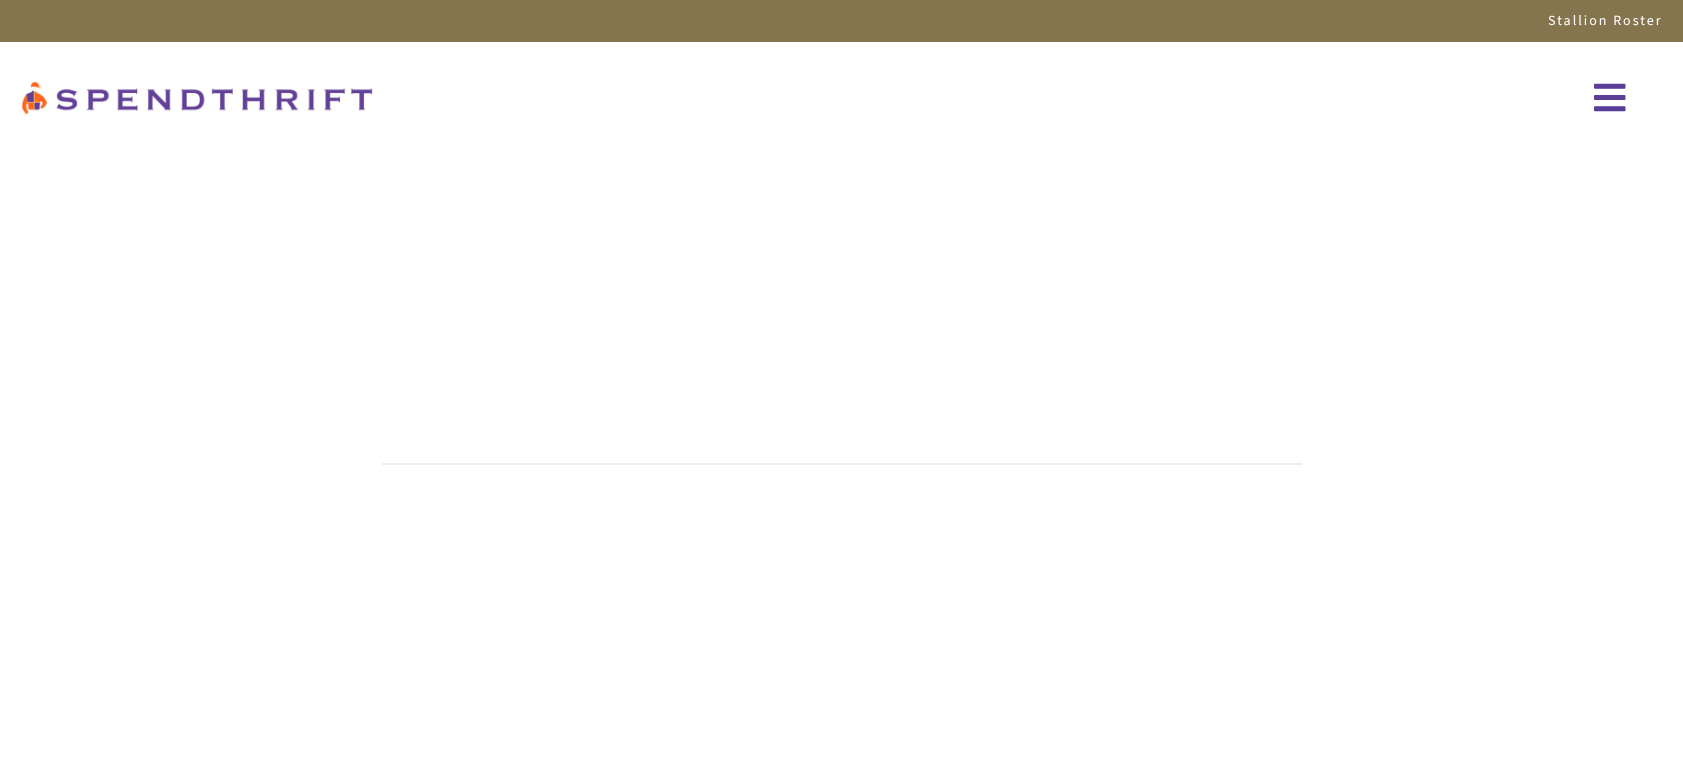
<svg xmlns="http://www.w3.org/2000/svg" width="1683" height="767">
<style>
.a{font:14px 'Source Sans 3';letter-spacing:2px;fill:#fff}
</style>
<rect width="100%" height="100%" fill="#fff"/>
<path fill="#84754e" d="M0 0h1683v42H0z"/>
<image href="1.png" x="21" y="81" width="352" height="34"/>
<image href="2.png" x="1594" y="83" width="32" height="29"/>
<path fill="#edeeef" d="M382 463h920v2H382z"/>
<text class="a" x="1548" y="25">Stallion Roster</text>
</svg>
